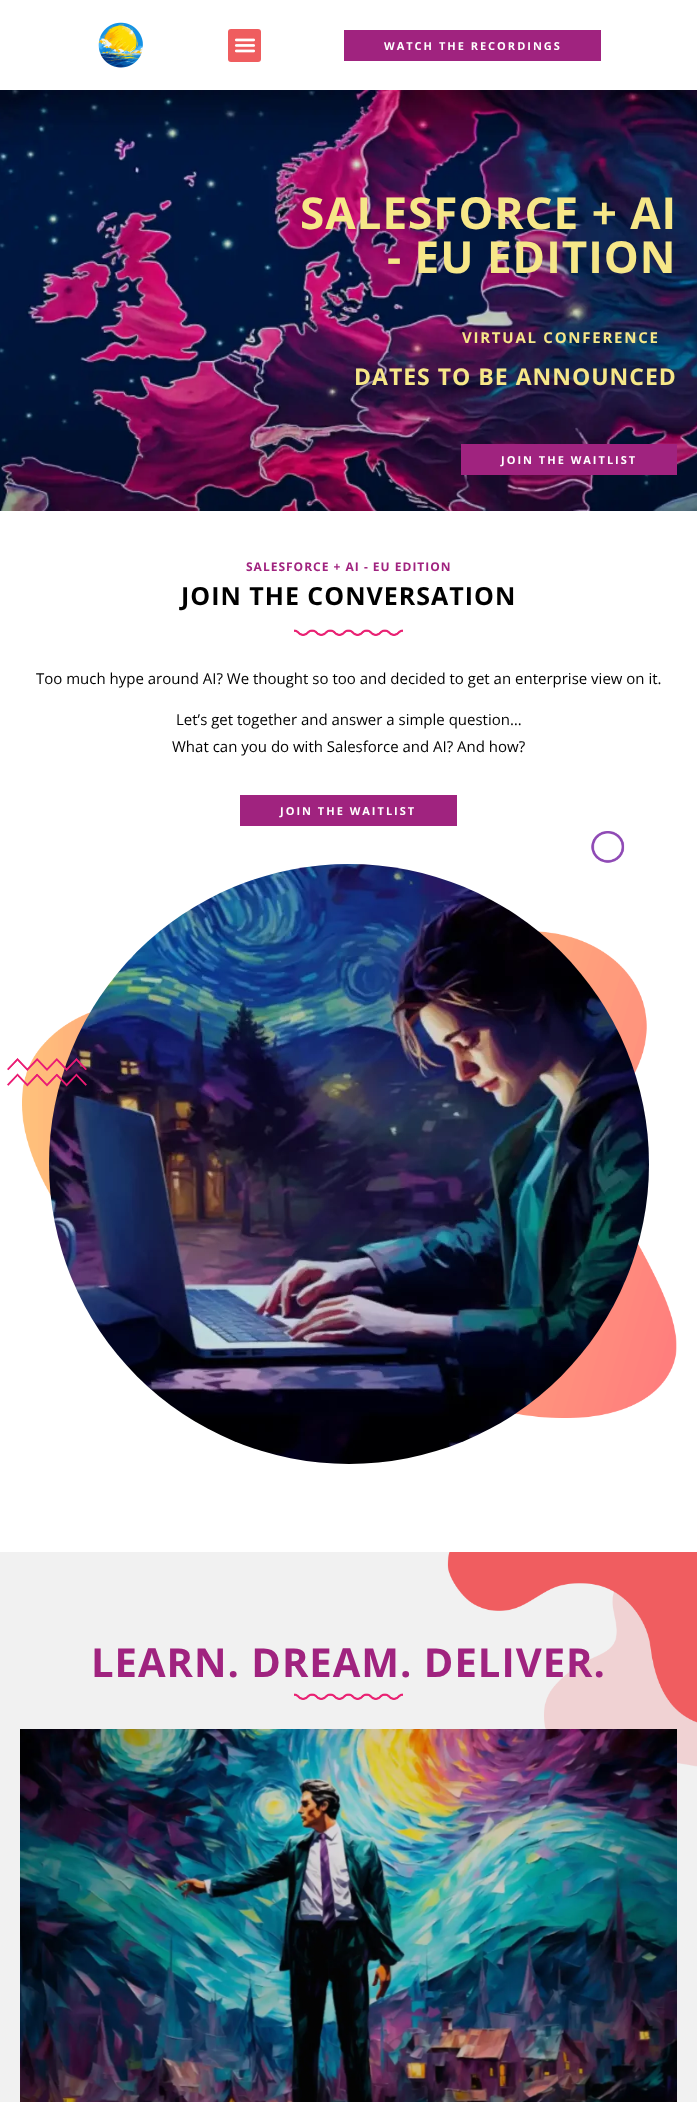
<svg xmlns="http://www.w3.org/2000/svg" width="697" height="2102">
<style>
.a{font:bold 11px Open Sans;letter-spacing:2px;fill:#fff}
.b{font:bold 44px Open Sans;letter-spacing:1px;fill:#f6e788}
.c{font:bold 15px Open Sans;letter-spacing:1.75px;fill:#f6e788}
.d{font:bold 23px Open Sans;letter-spacing:1px;fill:#f6e788}
.e{font:bold 12px Open Sans;letter-spacing:1px;fill:#a0237f}
.f{font:bold 25px Open Sans;letter-spacing:1px;fill:#000}
.g{font:15px Open Sans;fill:#000}
.h{font:bold 40px Open Sans;letter-spacing:1px;fill:#a0237f}
</style>
<rect width="100%" height="100%" fill="#fff"/>
<image href="1.png" x="98" y="22" width="45" height="46"/>
<rect fill="#ef5d5f" x="228" y="29" width="33" height="33" rx="3"/>
<image href="2.png" x="234" y="38" width="21" height="15"/>
<path fill="#a0237f" d="M344 30h257v31H344z"/>
<image href="3.png" x="0" y="90" width="697" height="421"/>
<path fill="#a0237f" d="M461 444h216v31H461z"/>
<image href="4.png" x="294" y="629" width="109" height="7"/>
<path fill="#a0237f" d="M240 795h217v31H240z"/>
<image href="5.png" x="22" y="931" width="655" height="487"/>
<image href="6.png" x="591" y="831" width="34" height="32"/>
<image href="8.png" x="49" y="864" width="600" height="600"/>
<image href="7.png" x="7" y="1058" width="80" height="29"/>
<path fill="#f1f1f1" d="M0 1552h697v550H0z"/>
<image href="9.png" x="447" y="1552" width="250" height="215"/>
<image href="10.png" x="294" y="1693" width="109" height="7"/>
<image href="11.png" x="20" y="1729" width="657" height="373"/>
<text class="a" x="384" y="50">WATCH THE RECORDINGS</text>
<text class="b" x="300" y="229">SALESFORCE + AI</text>
<text class="b" x="387" y="273">- EU EDITION</text>
<text class="c" x="462" y="343">VIRTUAL CONFERENCE</text>
<text class="d" x="354" y="385">DATES TO BE ANNOUNCED</text>
<text class="a" x="501" y="464">JOIN THE WAITLIST</text>
<text class="e" x="246" y="571">SALESFORCE + AI - EU EDITION</text>
<text class="f" x="181" y="605">JOIN THE CONVERSATION</text>
<text class="g" x="36" y="684">Too much hype around AI? We thought so too and decided to get an enterprise view on it.</text>
<text class="g" x="176" y="725">Let’s get together and answer a simple question…</text>
<text class="g" x="172" y="752">What can you do with Salesforce and AI? And how?</text>
<text class="a" x="280" y="815">JOIN THE WAITLIST</text>
<text class="h" x="91" y="1677">LEARN. DREAM. DELIVER.</text>
</svg>
